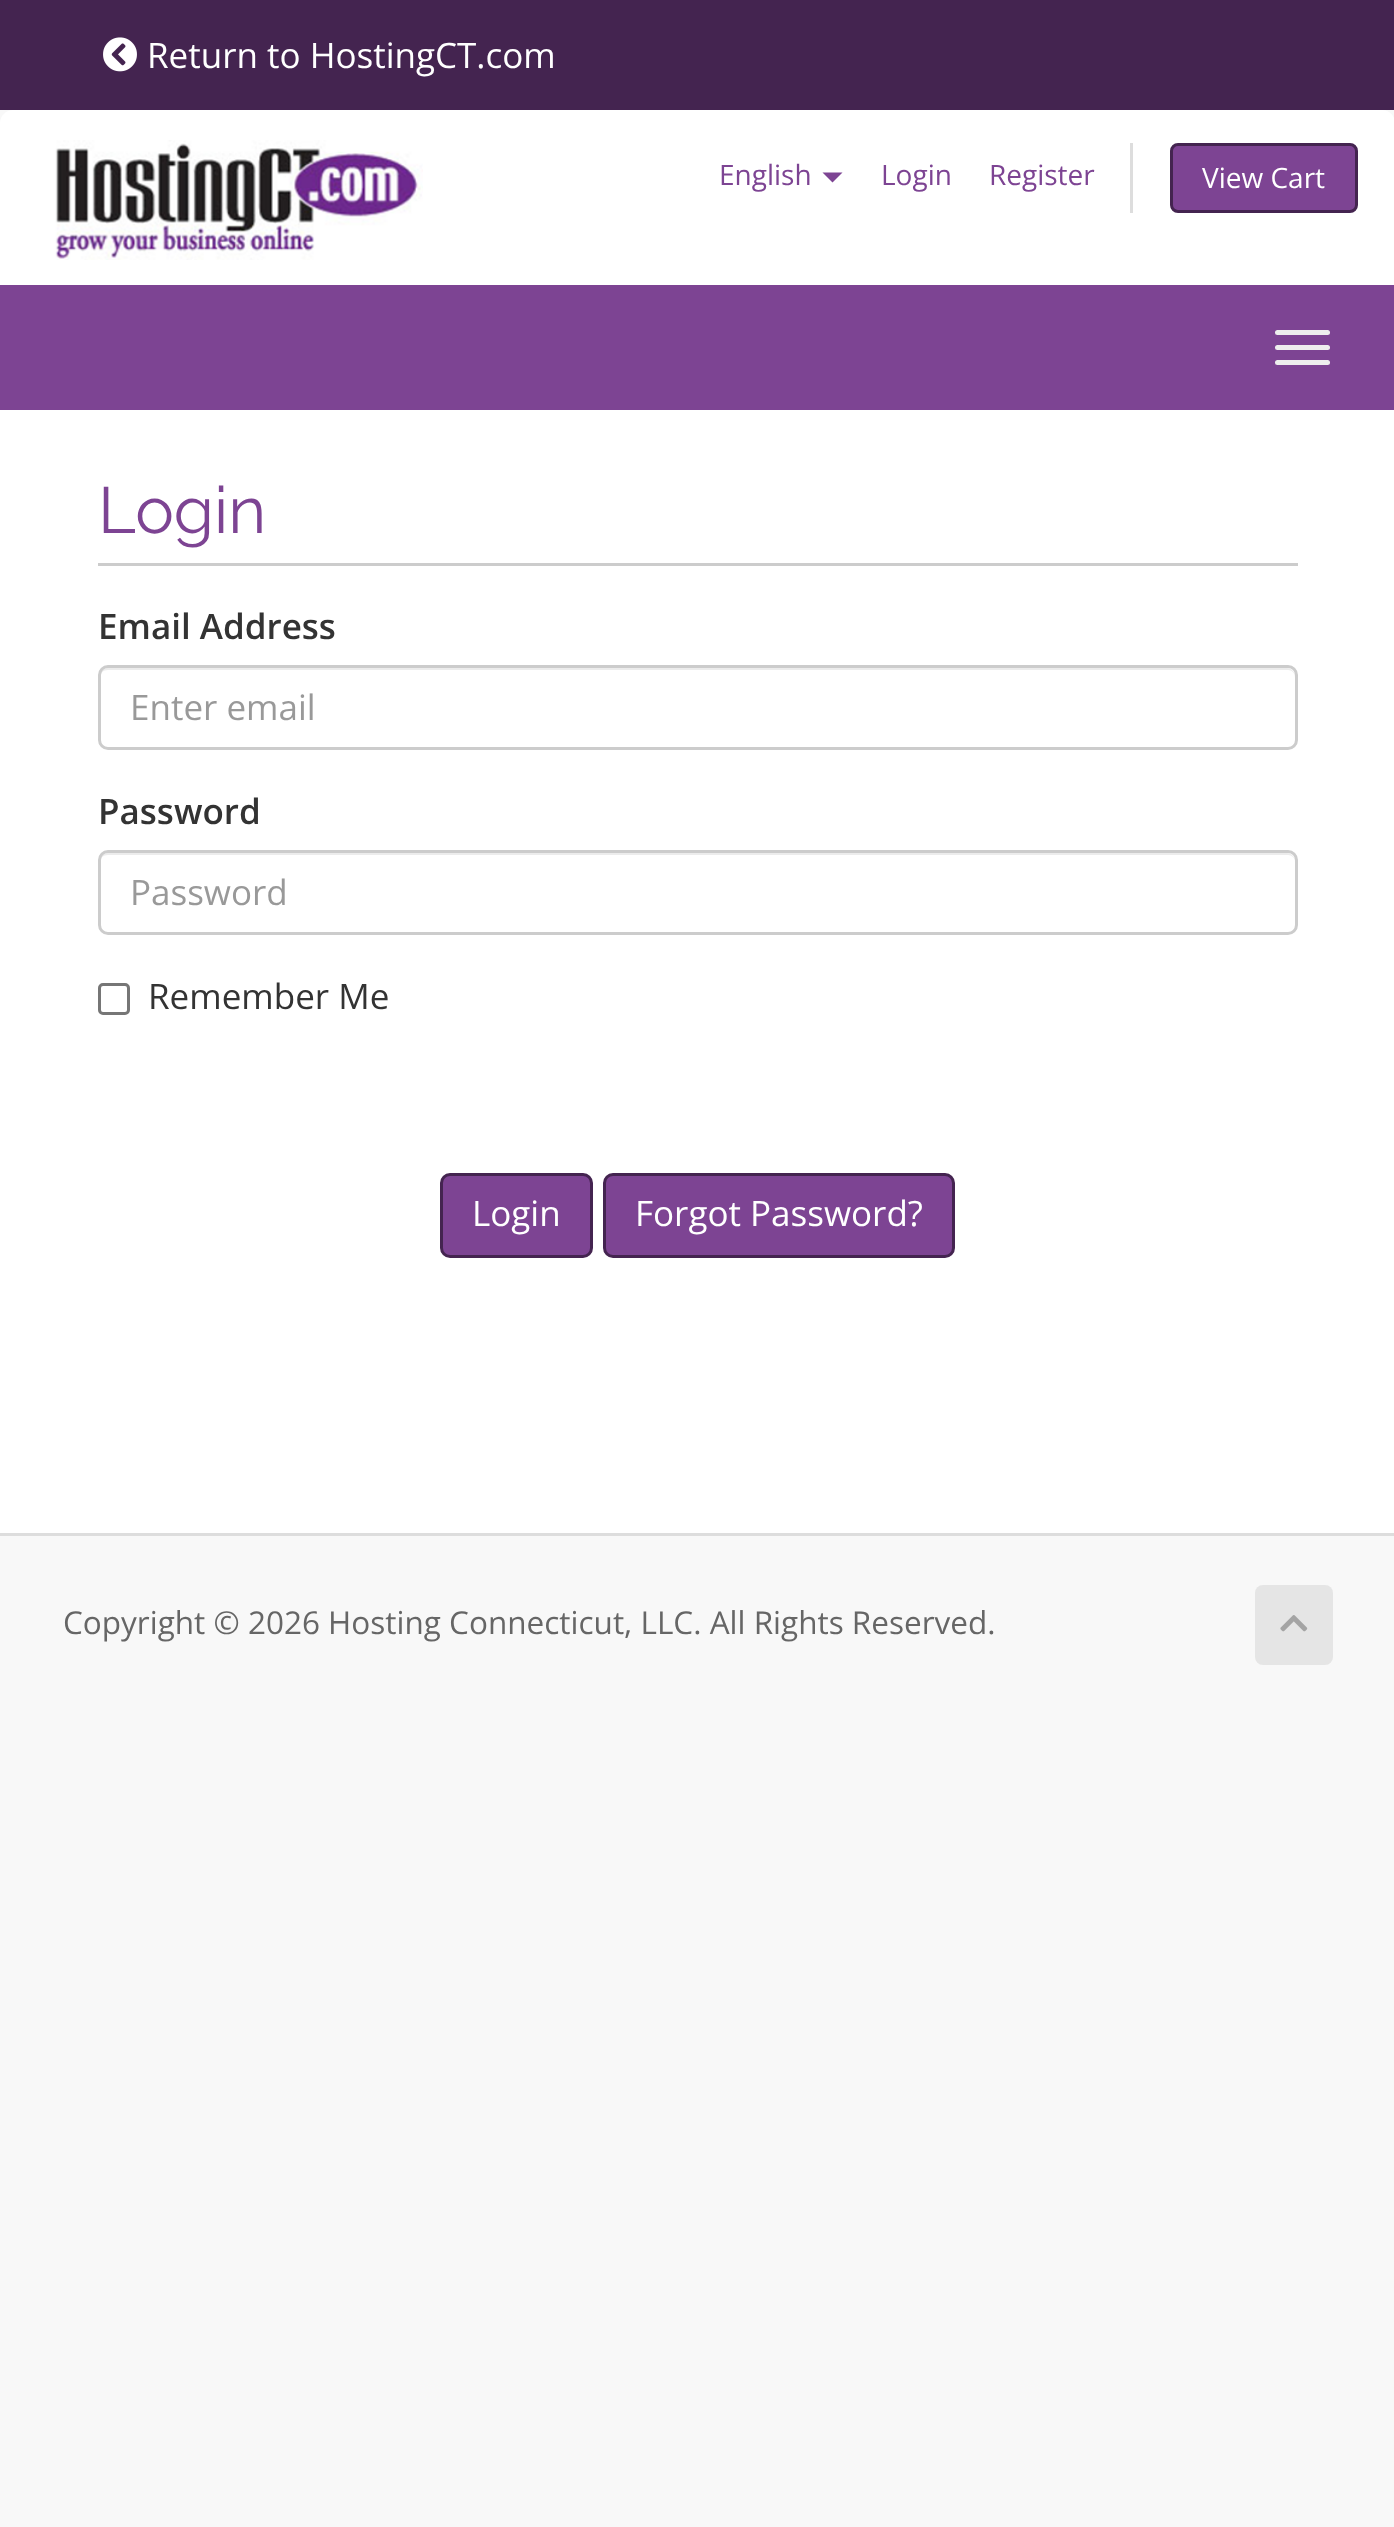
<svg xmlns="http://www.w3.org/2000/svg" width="1394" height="2527">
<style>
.a{font:35px Open Sans;fill:#fff}
.b{font:28px Open Sans;fill:#7d4493}
.c{font:28px Open Sans;fill:#fff}
.d{font:65px Raleway;fill:#7d4493}
.e{font:600 35px Open Sans;fill:#333}
.f{font:35px Open Sans;fill:#999}
.g{font:35px Open Sans;fill:#333}
.h{font:31.5px Open Sans;fill:#666}
</style>
<rect width="100%" height="100%" fill="#f8f8f8"/>
<path fill="#442450" d="M0 0h1394v110H0z"/>
<image href="1.png" x="103" y="37" width="34" height="35"/>
<path fill="#fff" d="M13 110h1369c7 0 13 6 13 13v162h-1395v-162c0-7 6-13 13-13z"/>
<image href="2.png" x="55" y="140" width="368" height="120"/>
<path fill="#7d4493" d="M822.5 172.5h20l-10 10z"/>
<path fill="#ddd" d="M1130 143h3v70H1130z"/>
<rect fill="#7d4493" stroke="#442450" stroke-width="3" x="1171.5" y="144.5" width="185" height="67" rx="6.5"/>
<path fill="#7d4493" d="M0 285h1394v125H0z"/>
<rect fill="#eee" x="1275" y="330" width="55" height="5" rx="2.5"/>
<rect fill="#eee" x="1275" y="345" width="55" height="5" rx="2.5"/>
<rect fill="#eee" x="1275" y="360" width="55" height="5" rx="2.5"/>
<path fill="#fff" d="M0 410h1394v1123H0z"/>
<path fill="#ccc" d="M98 563h1200v3H98z"/>
<path fill="#ececec" d="M108 670h1180c4 0 7 3 7 8v-2c0-4-4-8-8-8h-1179c-4 0-8 4-8 8v2c0-5 3-8 8-8z"/>
<rect fill="none" stroke="#ccc" stroke-width="3" x="99.5" y="666.5" width="1197" height="82" rx="8.5"/>
<path fill="#ececec" d="M108 855h1180c4 0 7 3 7 7v-1c0-4-4-8-8-8h-1179c-4 0-8 4-8 8v1c0-4 3-7 8-7z"/>
<rect fill="none" stroke="#ccc" stroke-width="3" x="99.5" y="851.5" width="1197" height="82" rx="8.5"/>
<rect fill="none" stroke="#767676" stroke-width="3" x="99.5" y="984.5" width="29" height="29" rx="3.5"/>
<rect fill="#7d4493" stroke="#442450" stroke-width="3" x="441.5" y="1174.5" width="150" height="82" rx="8.5"/>
<rect fill="#7d4493" stroke="#442450" stroke-width="3" x="604.5" y="1174.5" width="349" height="82" rx="8.5"/>
<path fill="#ddd" d="M0 1533h1394v3H0z"/>
<rect fill="#e5e5e5" x="1255" y="1585" width="78" height="80" rx="8"/>
<image href="3.png" x="1280" y="1615" width="28" height="17"/>
<text class="a" x="147" y="68">Return to HostingCT.com</text>
<text class="b" x="719" y="185">English</text>
<text class="b" x="881" y="185">Login</text>
<text class="b" x="989" y="185">Register</text>
<text class="c" x="1202" y="188">View Cart</text>
<text class="d" x="98" y="533">Login</text>
<text class="e" x="98" y="639">Email Address</text>
<text class="f" x="130" y="720">Enter email</text>
<text class="e" x="98" y="824">Password</text>
<text class="f" x="130" y="905">Password</text>
<text class="g" x="148" y="1009">Remember Me</text>
<text class="a" x="472" y="1226">Login</text>
<text class="a" x="635" y="1226">Forgot Password?</text>
<text class="h" x="63" y="1634">Copyright © 2026 Hosting Connecticut, LLC. All Rights Reserved.</text>
</svg>
